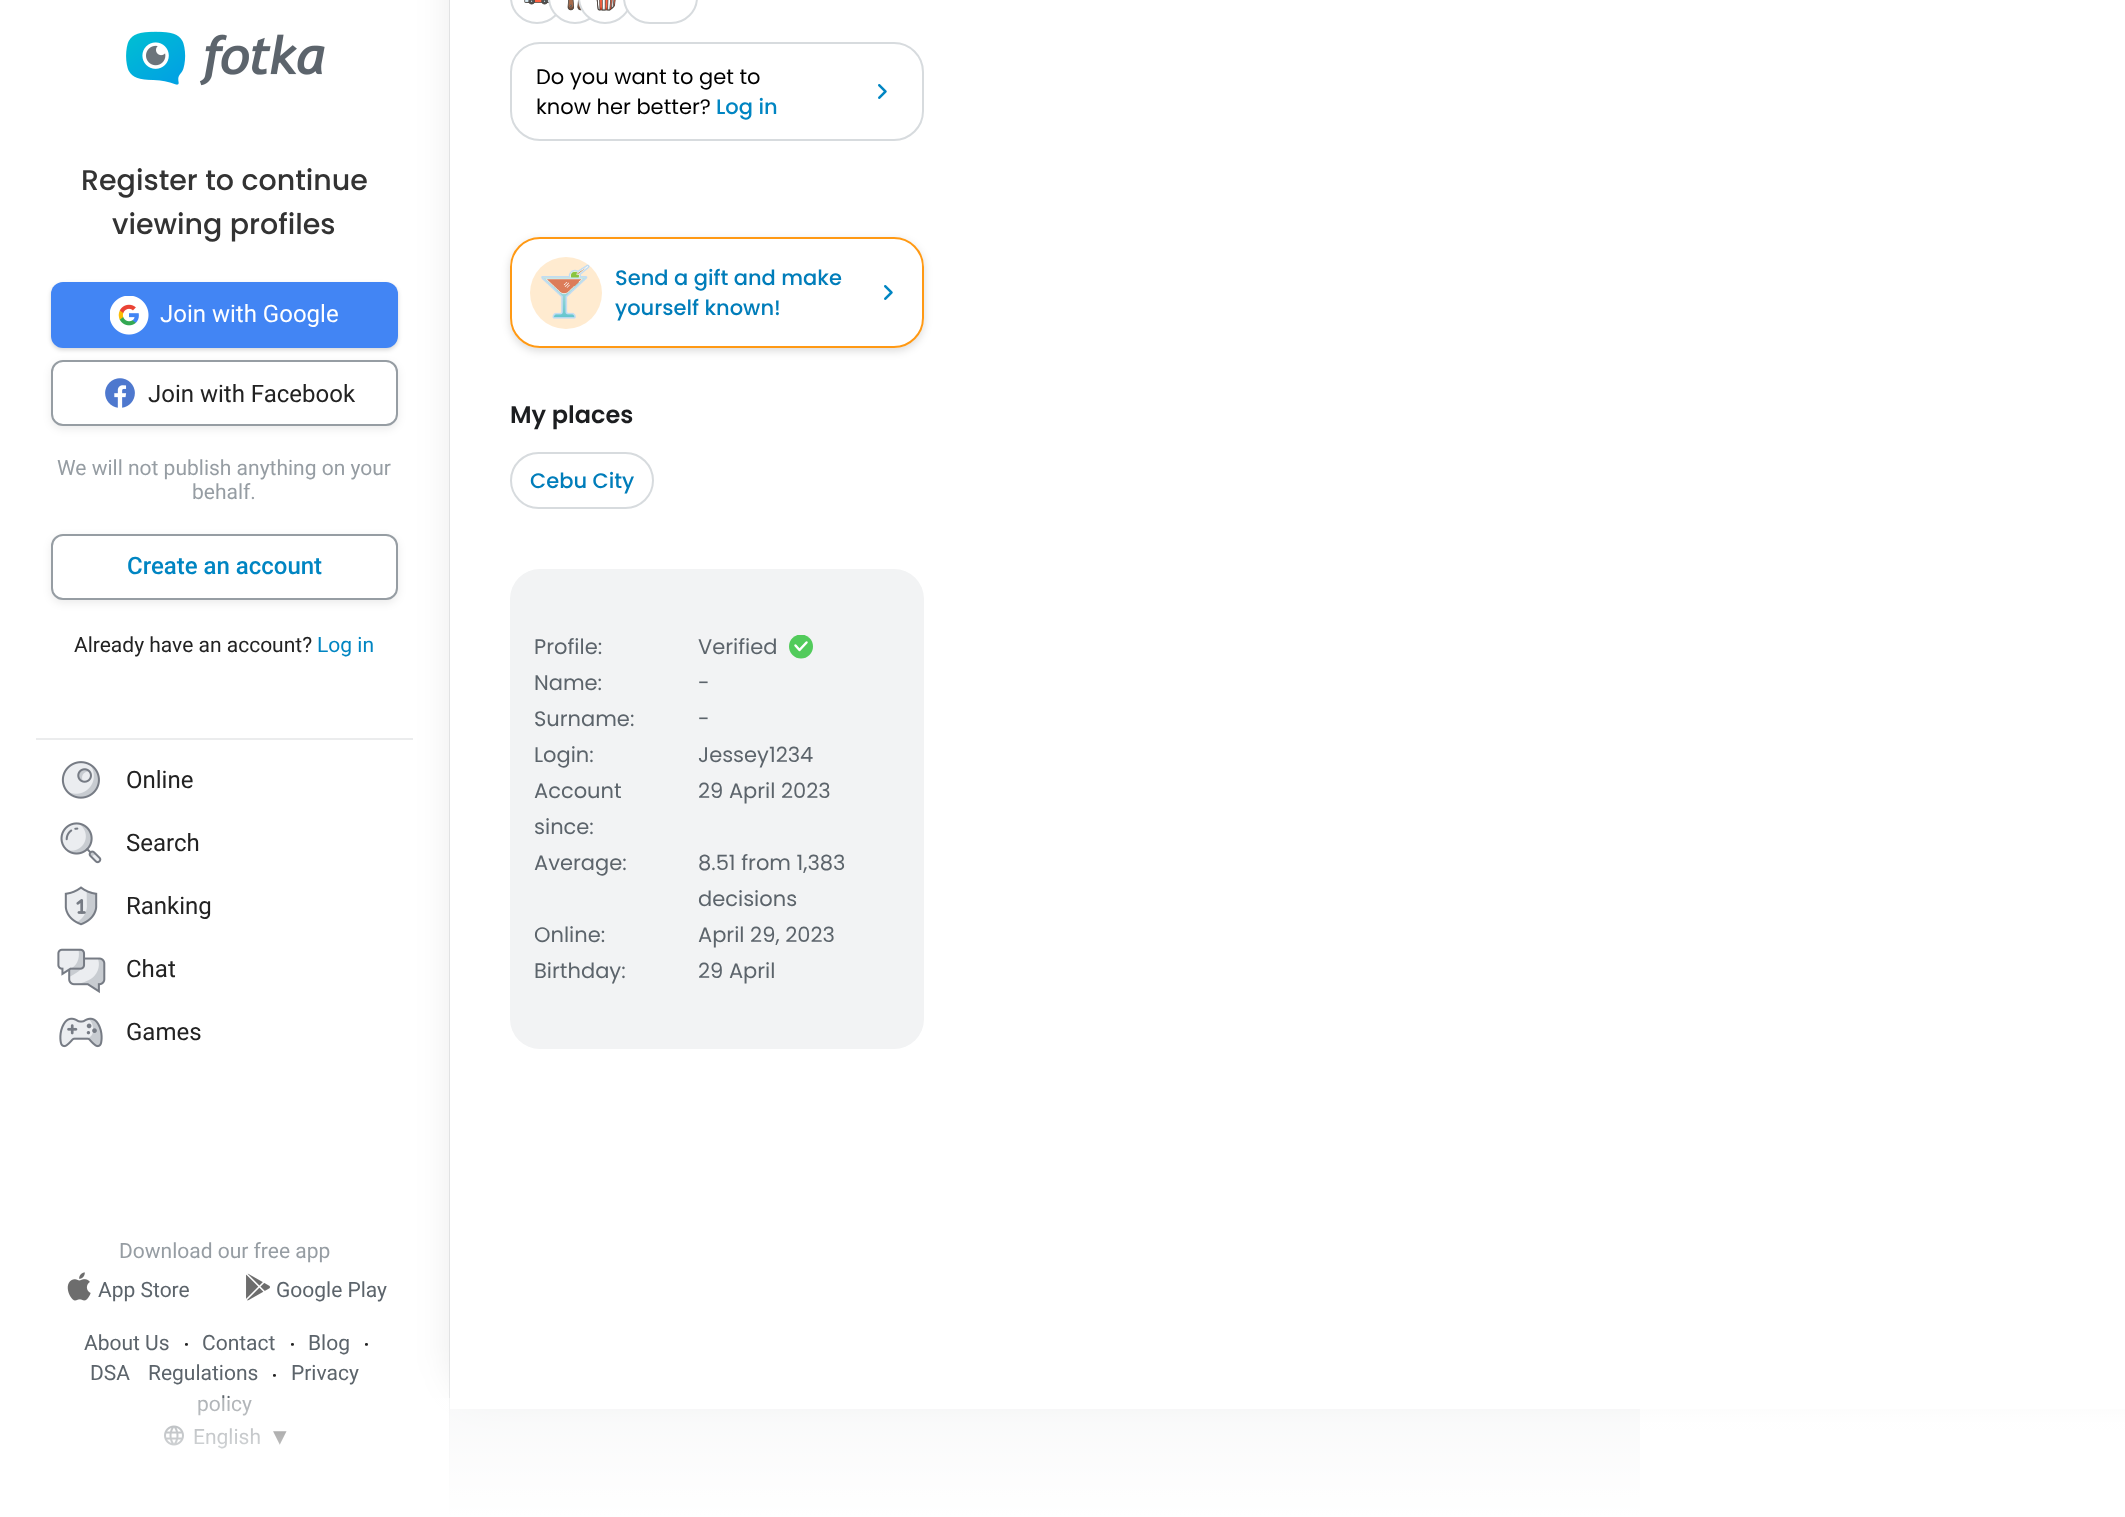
<svg xmlns="http://www.w3.org/2000/svg" width="2125" height="1517">
<style>
.a{font:500 28.5px Poppins;fill:#333}
.b{font:24px Roboto;fill:#fff}
.c{font:24px Roboto;fill:#222}
.d{font:21px Roboto;fill:#969da3}
.e{font:500 24px Roboto;fill:#0085c2}
.f{font:21px Roboto;fill:#222}
.g{font:21px Roboto;fill:#0085c2}
.h{font:21px Roboto;fill:#5c646b}
.i{font:27px Roboto;fill:#222}
.j{font:27px DejaVu Sans;fill:#222}
.k{font:21px Poppins;fill:#000}
.l{font:500 21px Poppins;fill:#0085c2}
.m{font:500 21px Poppins;fill:#007dba}
.n{font:600 24px Poppins;fill:#1c1e20}
.o{font:21px Poppins;fill:#5c646b}
</style>
<defs>
<clipPath id="clip1"><path d="M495 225h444v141h-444zm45 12h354c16.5 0 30 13.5 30 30v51c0 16.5-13.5 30-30 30h-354c-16.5 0-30-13.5-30-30v-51c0-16.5 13.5-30 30-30z" clip-rule="evenodd"/></clipPath>
<clipPath id="clip2"><path d="M789 635h24v24H789z"/></clipPath>
<linearGradient id="g1" gradientUnits="userSpaceOnUse" x1="1063" y1="1398" x2="1063" y2="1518"><stop offset="0" stop-color="#fff" stop-opacity="0.5"/><stop offset="1" stop-color="#fff"/></linearGradient>
</defs>
<rect width="100%" height="100%" fill="#fff"/>
<path fill="#ebeced" d="M449 0h1v1517H449z"/>
<image href="1.png" x="126" y="31" width="199" height="55"/>
<rect fill="#00000029" filter="blur(2px)" x="51" y="284" width="347" height="66" rx="12"/>
<rect fill="#4285f4" x="51" y="282" width="347" height="66" rx="12"/>
<image href="2.png" x="110" y="296" width="39" height="39"/>
<rect fill="#00000014" filter="blur(4.5px)" x="51" y="363" width="347" height="66" rx="12"/>
<rect fill="#fff" stroke="#969da3" stroke-width="2" x="52" y="361" width="345" height="64" rx="11"/>
<image href="3.png" x="105" y="378" width="30" height="30"/>
<rect fill="#00000014" filter="blur(4.5px)" x="51" y="537" width="347" height="66" rx="12"/>
<rect fill="#fff" stroke="#969da3" stroke-width="2" x="52" y="535" width="345" height="64" rx="11"/>
<path fill="#ebeced" d="M36 738h377v2H36z"/>
<image href="4.png" x="61" y="761" width="39" height="38"/>
<image href="5.png" x="60" y="822" width="42" height="42"/>
<image href="6.png" x="64" y="886" width="34" height="40"/>
<image href="7.png" x="57" y="948" width="49" height="46"/>
<image href="8.png" x="59" y="1017" width="44" height="31"/>
<image href="9.png" x="67" y="1272" width="24" height="29"/>
<image href="10.png" x="246" y="1273" width="24" height="28"/>
<image href="11.png" x="164" y="1425" width="20" height="21"/>
<path fill="#f2f3f4" d="M450 1409h1190v108H450z"/>
<rect fill="#00000014" filter="blur(18px)" x="450" y="-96" width="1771" height="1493" rx="42"/>
<path fill="#fff" d="M450 0h1675v1409H450z"/>
<rect fill="none" stroke="#d7dbde" stroke-width="2" x="511" y="-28" width="52" height="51" rx="26"/>
<image href="12.png" x="524" y="0" width="25" height="5"/>
<rect fill="#fff" stroke="#d7dbde" stroke-width="2" x="549" y="-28" width="52" height="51" rx="26"/>
<image href="13.png" x="567" y="0" width="15" height="11"/>
<rect fill="#fff" stroke="#d7dbde" stroke-width="2" x="579" y="-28" width="52" height="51" rx="26"/>
<image href="14.png" x="596" y="0" width="20" height="11"/>
<rect fill="#fff" stroke="#d7dbde" stroke-width="2" x="624" y="-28" width="73" height="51" rx="26"/>
<rect fill="none" stroke="#d7dbde" stroke-width="2" x="511" y="43" width="412" height="97" rx="29"/>
<image href="15.png" x="878" y="84" width="9" height="15"/>
<g clip-path="url(#clip1)">
<rect fill="#00000024" filter="blur(4.5px)" x="510" y="240" width="414" height="111" rx="30"/>
</g>
<rect fill="none" stroke="#ff9914" stroke-width="2" x="511" y="238" width="412" height="109" rx="29"/>
<circle fill="#ffebd0" cx="566" cy="293" r="36"/>
<image href="16.png" x="541" y="264" width="49" height="55"/>
<image href="15.png" x="884" y="285" width="9" height="15"/>
<rect fill="none" stroke="#d7dbde" stroke-width="2" x="511" y="453" width="142" height="55" rx="27.5"/>
<rect fill="#f2f3f4" x="510" y="569" width="414" height="480" rx="30"/>
<g clip-path="url(#clip2)">
<circle fill="#52cb5b" cx="801" cy="646.5" r="12"/>
</g>
<path fill="none" stroke="#fff" stroke-width="2.5" stroke-linecap="round" stroke-linejoin="round" d="M795.5 645.5l4 4.5l7-7.5"/>
<text class="a" x="81" y="190">Register to continue</text>
<text class="a" x="112" y="234">viewing profiles</text>
<text class="b" x="160" y="322">Join with Google</text>
<text class="c" x="148" y="402">Join with Facebook</text>
<text class="d" x="57" y="475">We will not publish anything on your</text>
<text class="d" x="192" y="499">behalf.</text>
<text class="e" x="127" y="574">Create an account</text>
<text class="f" x="74" y="652">Already have an account?</text>
<text class="g" x="317" y="652">Log in</text>
<text class="c" x="126" y="788">Online</text>
<text class="c" x="126" y="851">Search</text>
<text class="c" x="126" y="914">Ranking</text>
<text class="c" x="126" y="977">Chat</text>
<text class="c" x="126" y="1040">Games</text>
<text class="d" x="119" y="1258">Download our free app</text>
<text class="h" x="98" y="1297">App Store</text>
<text class="h" x="276" y="1297">Google Play</text>
<text class="h" x="84" y="1350">About Us</text>
<text class="i" x="183" y="1354">·</text>
<text class="h" x="202" y="1350">Contact</text>
<text class="i" x="289" y="1354">·</text>
<text class="h" x="308" y="1350">Blog</text>
<text class="i" x="363" y="1354">·</text>
<text class="h" x="90" y="1380">DSA</text>
<text class="h" x="148" y="1380">Regulations</text>
<text class="i" x="271" y="1385">·</text>
<text class="h" x="291" y="1380">Privacy</text>
<text class="h" x="197" y="1411">policy</text>
<text class="h" x="193" y="1444">English</text>
<text class="j" x="273" y="1445">▾</text>
<text class="k" x="536" y="84">Do you want to get to</text>
<text class="k" x="536" y="114">know her better?</text>
<text class="l" x="716" y="114">Log in</text>
<text class="m" x="615" y="285">Send a gift and make</text>
<text class="m" x="615" y="315">yourself known!</text>
<text class="n" x="510" y="423">My places</text>
<text class="m" x="530" y="488">Cebu City</text>
<text class="o" x="534" y="654">Profile:</text>
<text class="o" x="698" y="654">Verified</text>
<text class="o" x="534" y="690">Name:</text>
<text class="o" x="698" y="690">-</text>
<text class="o" x="534" y="726">Surname:</text>
<text class="o" x="698" y="726">-</text>
<text class="o" x="534" y="762">Login:</text>
<text class="o" x="698" y="762">Jessey1234</text>
<text class="o" x="534" y="798">Account</text>
<text class="o" x="534" y="834">since:</text>
<text class="o" x="698" y="798">29 April 2023</text>
<text class="o" x="534" y="870">Average:</text>
<text class="o" x="698" y="870">8.51 from 1,383</text>
<text class="o" x="698" y="906">decisions</text>
<text class="o" x="534" y="942">Online:</text>
<text class="o" x="698" y="942">April 29, 2023</text>
<text class="o" x="534" y="978">Birthday:</text>
<text class="o" x="698" y="978">29 April</text>
<path fill="url(#g1)" d="M164 1398h1961v119H164z"/>
</svg>
